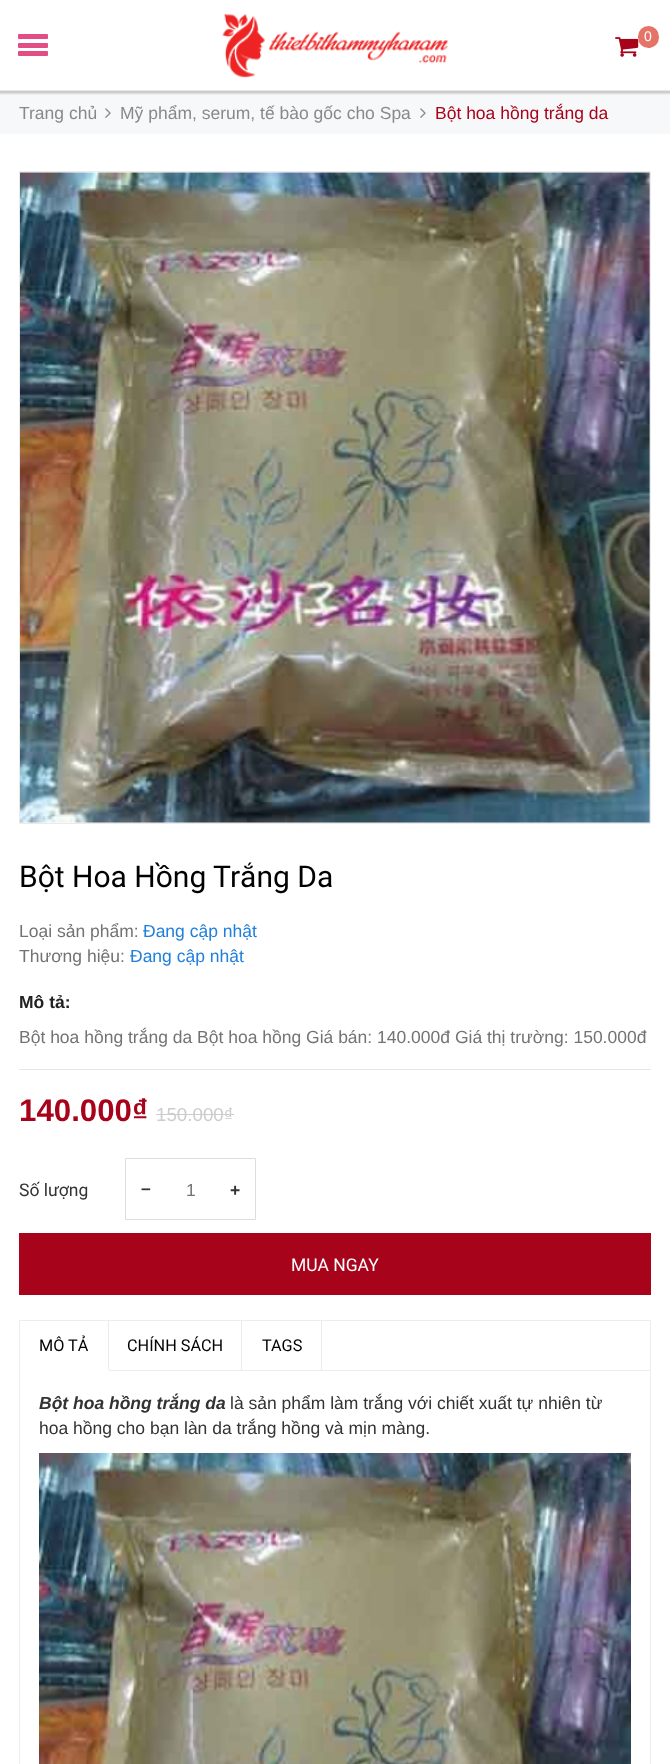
<svg xmlns="http://www.w3.org/2000/svg" width="670" height="1764">
<style>
.a{font:14px Liberation Sans;fill:#fff}
.b{font:17.5px Liberation Sans;fill:#898989}
.c{font:17.5px Liberation Sans;fill:#a7031b}
.d{font:30px Roboto;fill:#000}
.e{font:17.5px Liberation Sans;fill:#737373}
.f{font:17.5px Liberation Sans;fill:#207fdd}
.g{font:bold 17.5px Liberation Sans;fill:#222}
.h{font:bold 31.25px Liberation Sans;fill:#a7031b}
.i{font:18.75px Liberation Sans;fill:#cdcdcd}
.j{font:17.5px Roboto;fill:#333}
.k{font:bold 17.5px Liberation Sans;fill:#333}
.l{font:17.5px Roboto;fill:#fff}
.m{font:16.25px Roboto;fill:#000}
.n{font:italic bold 17.5px Liberation Sans;fill:#333}
.o{font:17.5px Liberation Sans;fill:#333}
</style>
<rect width="100%" height="100%" fill="#fff"/>
<path fill="#e3e4e5" d="M0 91h670v2H0z"/>
<path fill="#f7f8f9" d="M0 93h670v41H0z"/>
<path fill="#0000000f" d="M0 91h670v3H0z"/>
<path fill="#0000000a" d="M0 91h670v4H0z"/>
<path fill="#e6e6e6" d="M0 90h670v1H0z"/>
<rect fill="#e24d85" x="18" y="34" width="30" height="5" rx="1"/>
<rect fill="#e24d85" x="18" y="43" width="30" height="5" rx="1"/>
<rect fill="#e24d85" x="18" y="51" width="30" height="5" rx="1"/>
<image href="1.png" x="222" y="14" width="226" height="64"/>
<image href="2.png" x="615" y="37" width="24" height="20"/>
<rect fill="#e57368" x="638" y="26" width="21" height="22" rx="10.5"/>
<image href="3.png" x="105" y="108" width="6" height="10"/>
<image href="3.png" x="420" y="108" width="6" height="10"/>
<path fill="none" stroke="#ebebeb" d="M19.5 171.5h631v652H19.5z"/>
<image href="4.png" x="20" y="172" width="630" height="651"/>
<path fill="#e6e6e6" d="M19 1069h632v1H19z"/>
<path fill="#cdcdcd" d="M156 1114h78v1H156z"/>
<path fill="none" stroke="#ddd" d="M125.5 1158.5h130v61H125.5z"/>
<path fill="#a7031b" d="M19 1233h632v62H19z"/>
<path fill="none" stroke="#ededed" d="M19.5 1320.5h631v50H19.5z"/>
<path fill="#ebebeb" d="M108 1321h1v50H108z"/>
<path fill="#fff" d="M20 1370h89v1H20z"/>
<path fill="#ebebeb" d="M241 1321h1v50H241z"/>
<path fill="#ebebeb" d="M321 1321h1v50H321z"/>
<path fill="#ededed" d="M650 1371h1v393H650z"/>
<path fill="#ededed" d="M19 1371h1v393H19z"/>
<image href="5.png" x="39" y="1453" width="592" height="311"/>
<text class="a" x="644" y="41">0</text>
<text class="b" x="19" y="119">Trang chủ</text>
<text class="b" x="120" y="119">Mỹ phẩm, serum, tế bào gốc cho Spa</text>
<text class="c" x="435" y="119">Bột hoa hồng trắng da</text>
<text class="d" x="19" y="887">Bột Hoa Hồng Trắng Da</text>
<text class="e" x="19" y="937">Loại sản phẩm:</text>
<text class="f" x="143" y="937">Đang cập nhật</text>
<text class="e" x="19" y="962">Thương hiệu:</text>
<text class="f" x="130" y="962">Đang cập nhật</text>
<text class="g" x="19" y="1008">Mô tả:</text>
<text class="e" x="19" y="1043">Bột hoa hồng trắng da Bột hoa hồng Giá bán: 140.000đ Giá thị trường: 150.000đ</text>
<text class="h" x="19" y="1121">140.000₫</text>
<text class="i" x="156" y="1121">150.000₫</text>
<text class="j" x="19" y="1196">Số lượng</text>
<text class="k" x="141" y="1194">–</text>
<text class="e" x="186" y="1196">1</text>
<text class="k" x="230" y="1196">+</text>
<text class="l" x="291" y="1271">MUA NGAY</text>
<text class="m" x="39" y="1351">MÔ TẢ</text>
<text class="m" x="127" y="1351">CHÍNH SÁCH</text>
<text class="m" x="262" y="1351">TAGS</text>
<text class="n" x="39" y="1409">Bột hoa hồng trắng da</text>
<text class="o" x="230" y="1409">là sản phẩm làm trắng với chiết xuất tự nhiên từ</text>
<text class="o" x="39" y="1434">hoa hồng cho bạn làn da trắng hồng và mịn màng.</text>
</svg>
